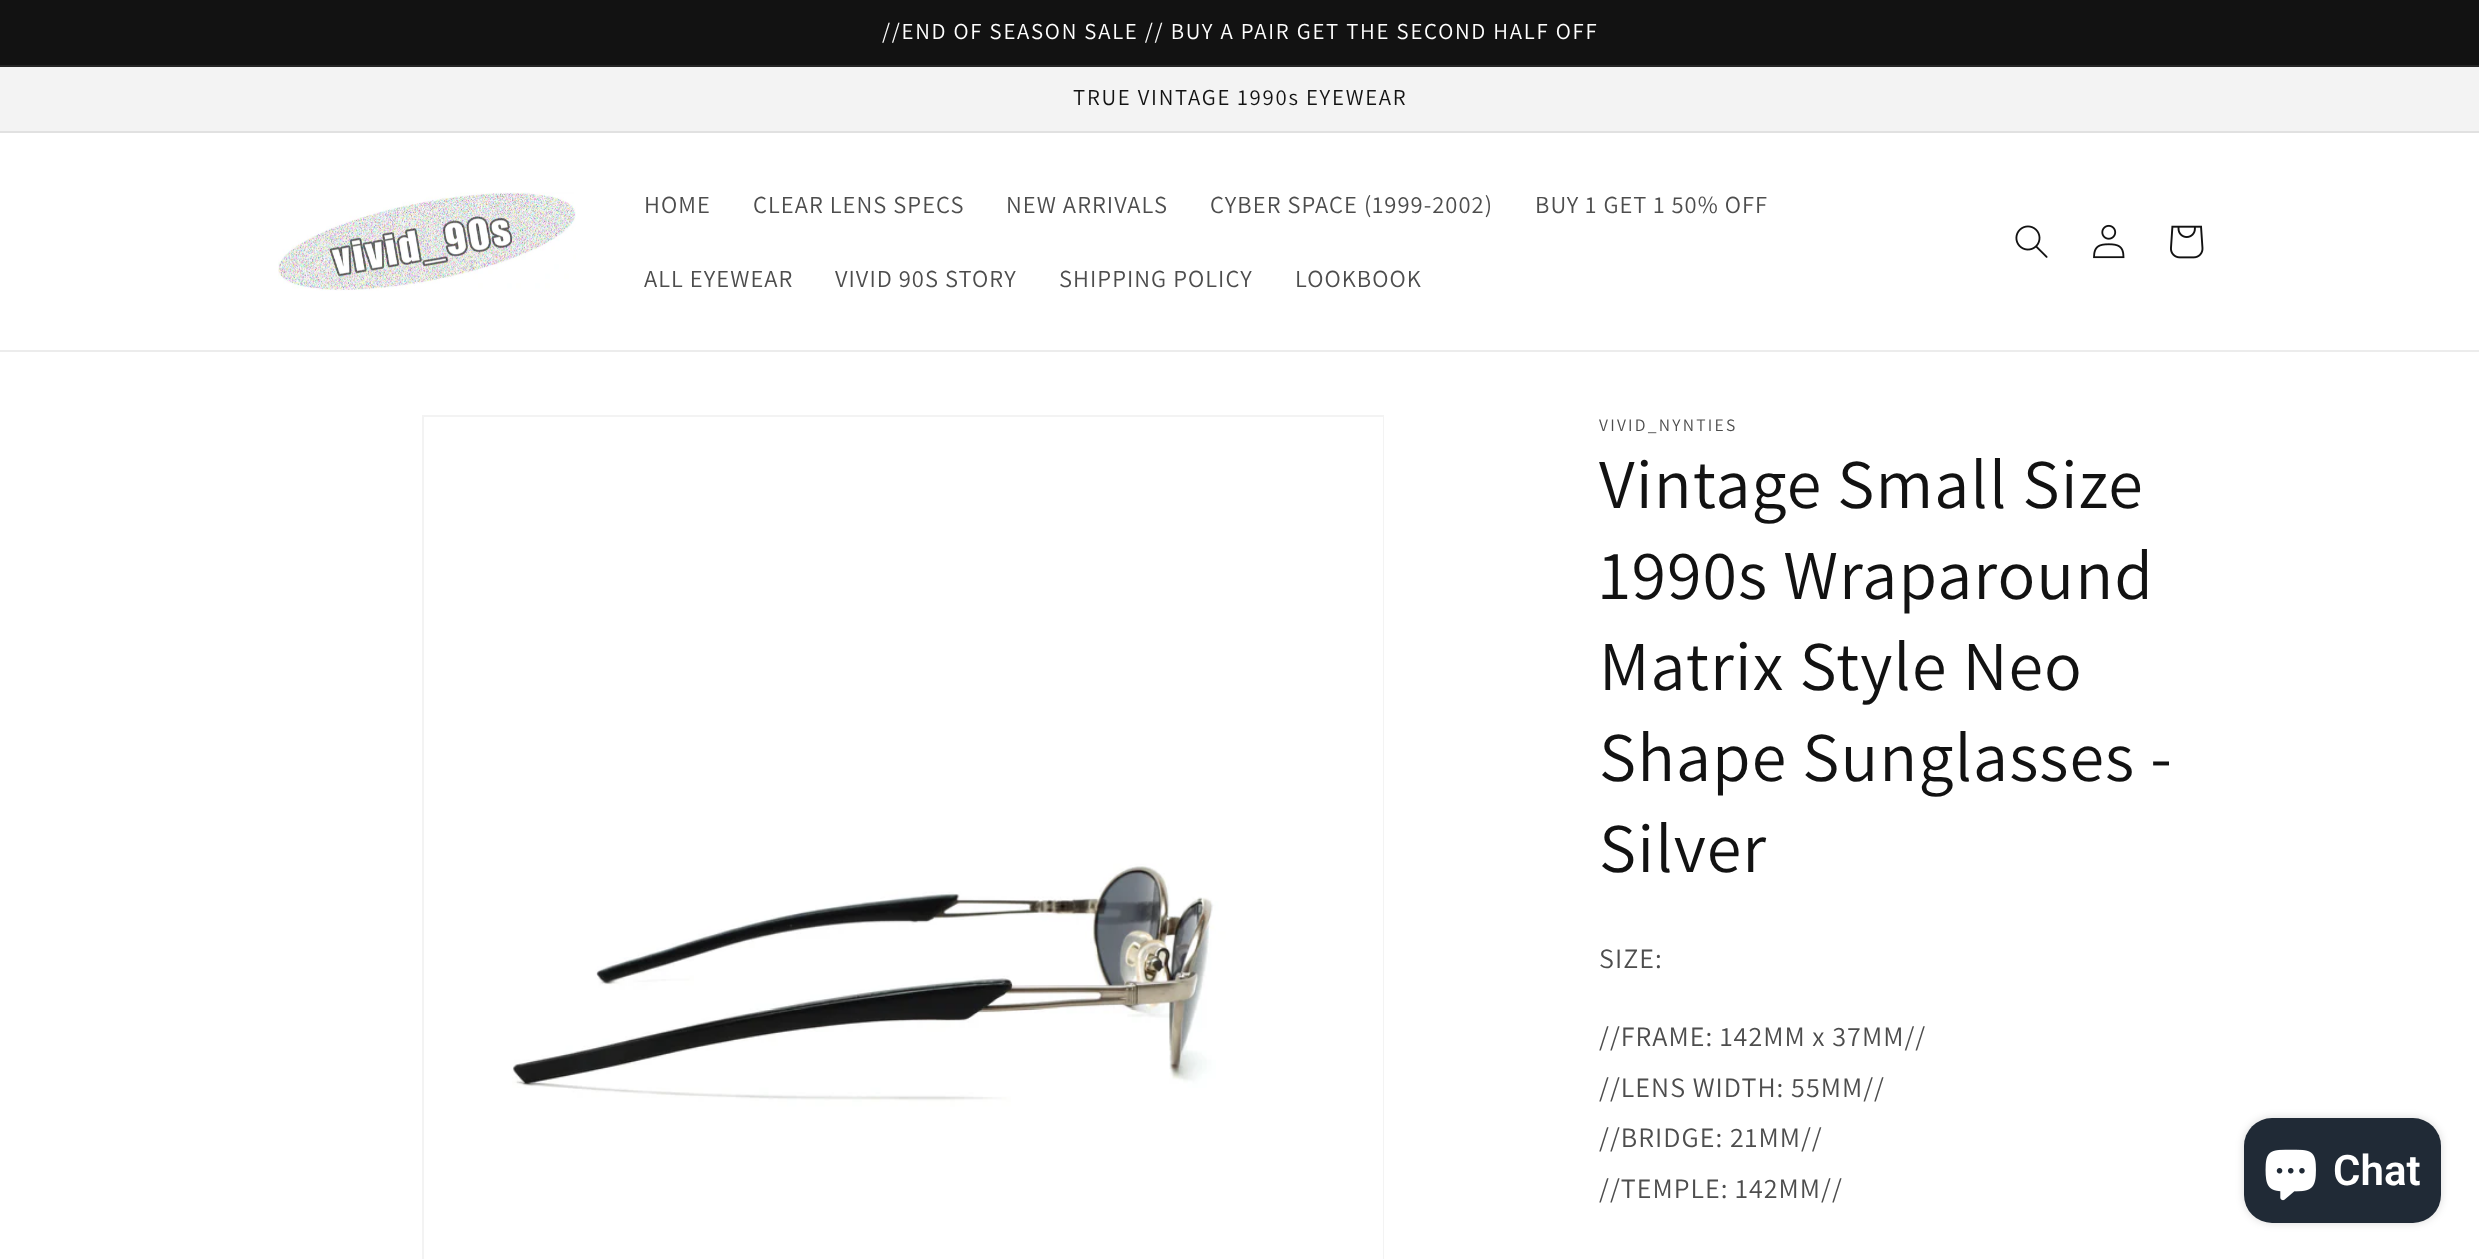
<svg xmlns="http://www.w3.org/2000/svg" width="2479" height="1259">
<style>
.a{font:22.75px Assistant;letter-spacing:1.75px;fill:#fff}
.b{font:22.75px Assistant;letter-spacing:1.75px;fill:#121212}
.c{font:24.5px Assistant;letter-spacing:1.05px;fill:#4d4d4d}
.d{font:17.5px Assistant;letter-spacing:2.25px;fill:#4d4d4d}
.e{font:70px Assistant;letter-spacing:1.05px;fill:#121212}
.f{font:28px Assistant;letter-spacing:1.05px;fill:#4d4d4d}
.g{font:600 42px Roboto;fill:#fff}
</style>
<rect width="100%" height="100%" fill="#fff"/>
<path fill="#121212" d="M0 0h2479v65H0z"/>
<path fill="#252525" d="M0 65h2479v2H0z"/>
<path fill="#f3f3f3" d="M0 67h2479v64H0z"/>
<path fill="#e1e1e1" d="M0 131h2479v2H0z"/>
<path fill="#ececec" d="M0 350h2479v2H0z"/>
<image href="1.png" x="278" y="192" width="298" height="99"/>
<image href="2.png" x="2015" y="225" width="33" height="33"/>
<image href="3.png" x="2093" y="224" width="32" height="35"/>
<image href="4.png" x="2170" y="225" width="34" height="34"/>
<path fill="none" stroke="#f3f3f3" stroke-width="2" d="M423 416h960v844H423z"/>
<image href="5.png" x="512" y="417" width="871" height="842"/>
<rect fill="#00000026" filter="blur(4.5px)" x="2244" y="1118" width="197" height="105" rx="28"/>
<rect fill="#202a36" x="2244" y="1118" width="197" height="105" rx="28"/>
<image href="6.png" x="2265" y="1149" width="51" height="52"/>
<text class="a" x="882" y="39">//END OF SEASON SALE // BUY A PAIR GET THE SECOND HALF OFF</text>
<text class="b" x="1073" y="105">TRUE VINTAGE 1990s EYEWEAR</text>
<text class="c" x="644" y="213">HOME</text>
<text class="c" x="753" y="213">CLEAR LENS SPECS</text>
<text class="c" x="1006" y="213">NEW ARRIVALS</text>
<text class="c" x="1210" y="213">CYBER SPACE (1999-2002)</text>
<text class="c" x="1535" y="213">BUY 1 GET 1 50% OFF</text>
<text class="c" x="644" y="287">ALL EYEWEAR</text>
<text class="c" x="835" y="287">VIVID 90S STORY</text>
<text class="c" x="1059" y="287">SHIPPING POLICY</text>
<text class="c" x="1295" y="287">LOOKBOOK</text>
<text class="d" x="1599" y="431">VIVID_NYNTIES</text>
<text class="e" x="1599" y="508">Vintage Small Size</text>
<text class="e" x="1599" y="599">1990s Wraparound</text>
<text class="e" x="1599" y="690">Matrix Style Neo</text>
<text class="e" x="1599" y="781">Shape Sunglasses -</text>
<text class="e" x="1599" y="872">Silver</text>
<text class="f" x="1599" y="968">SIZE:</text>
<text class="f" x="1599" y="1046">//FRAME: 142MM x 37MM//</text>
<text class="f" x="1599" y="1097">//LENS WIDTH: 55MM//</text>
<text class="f" x="1599" y="1147">//BRIDGE: 21MM//</text>
<text class="f" x="1599" y="1198">//TEMPLE: 142MM//</text>
<text class="g" x="2333" y="1185">Chat</text>
</svg>
